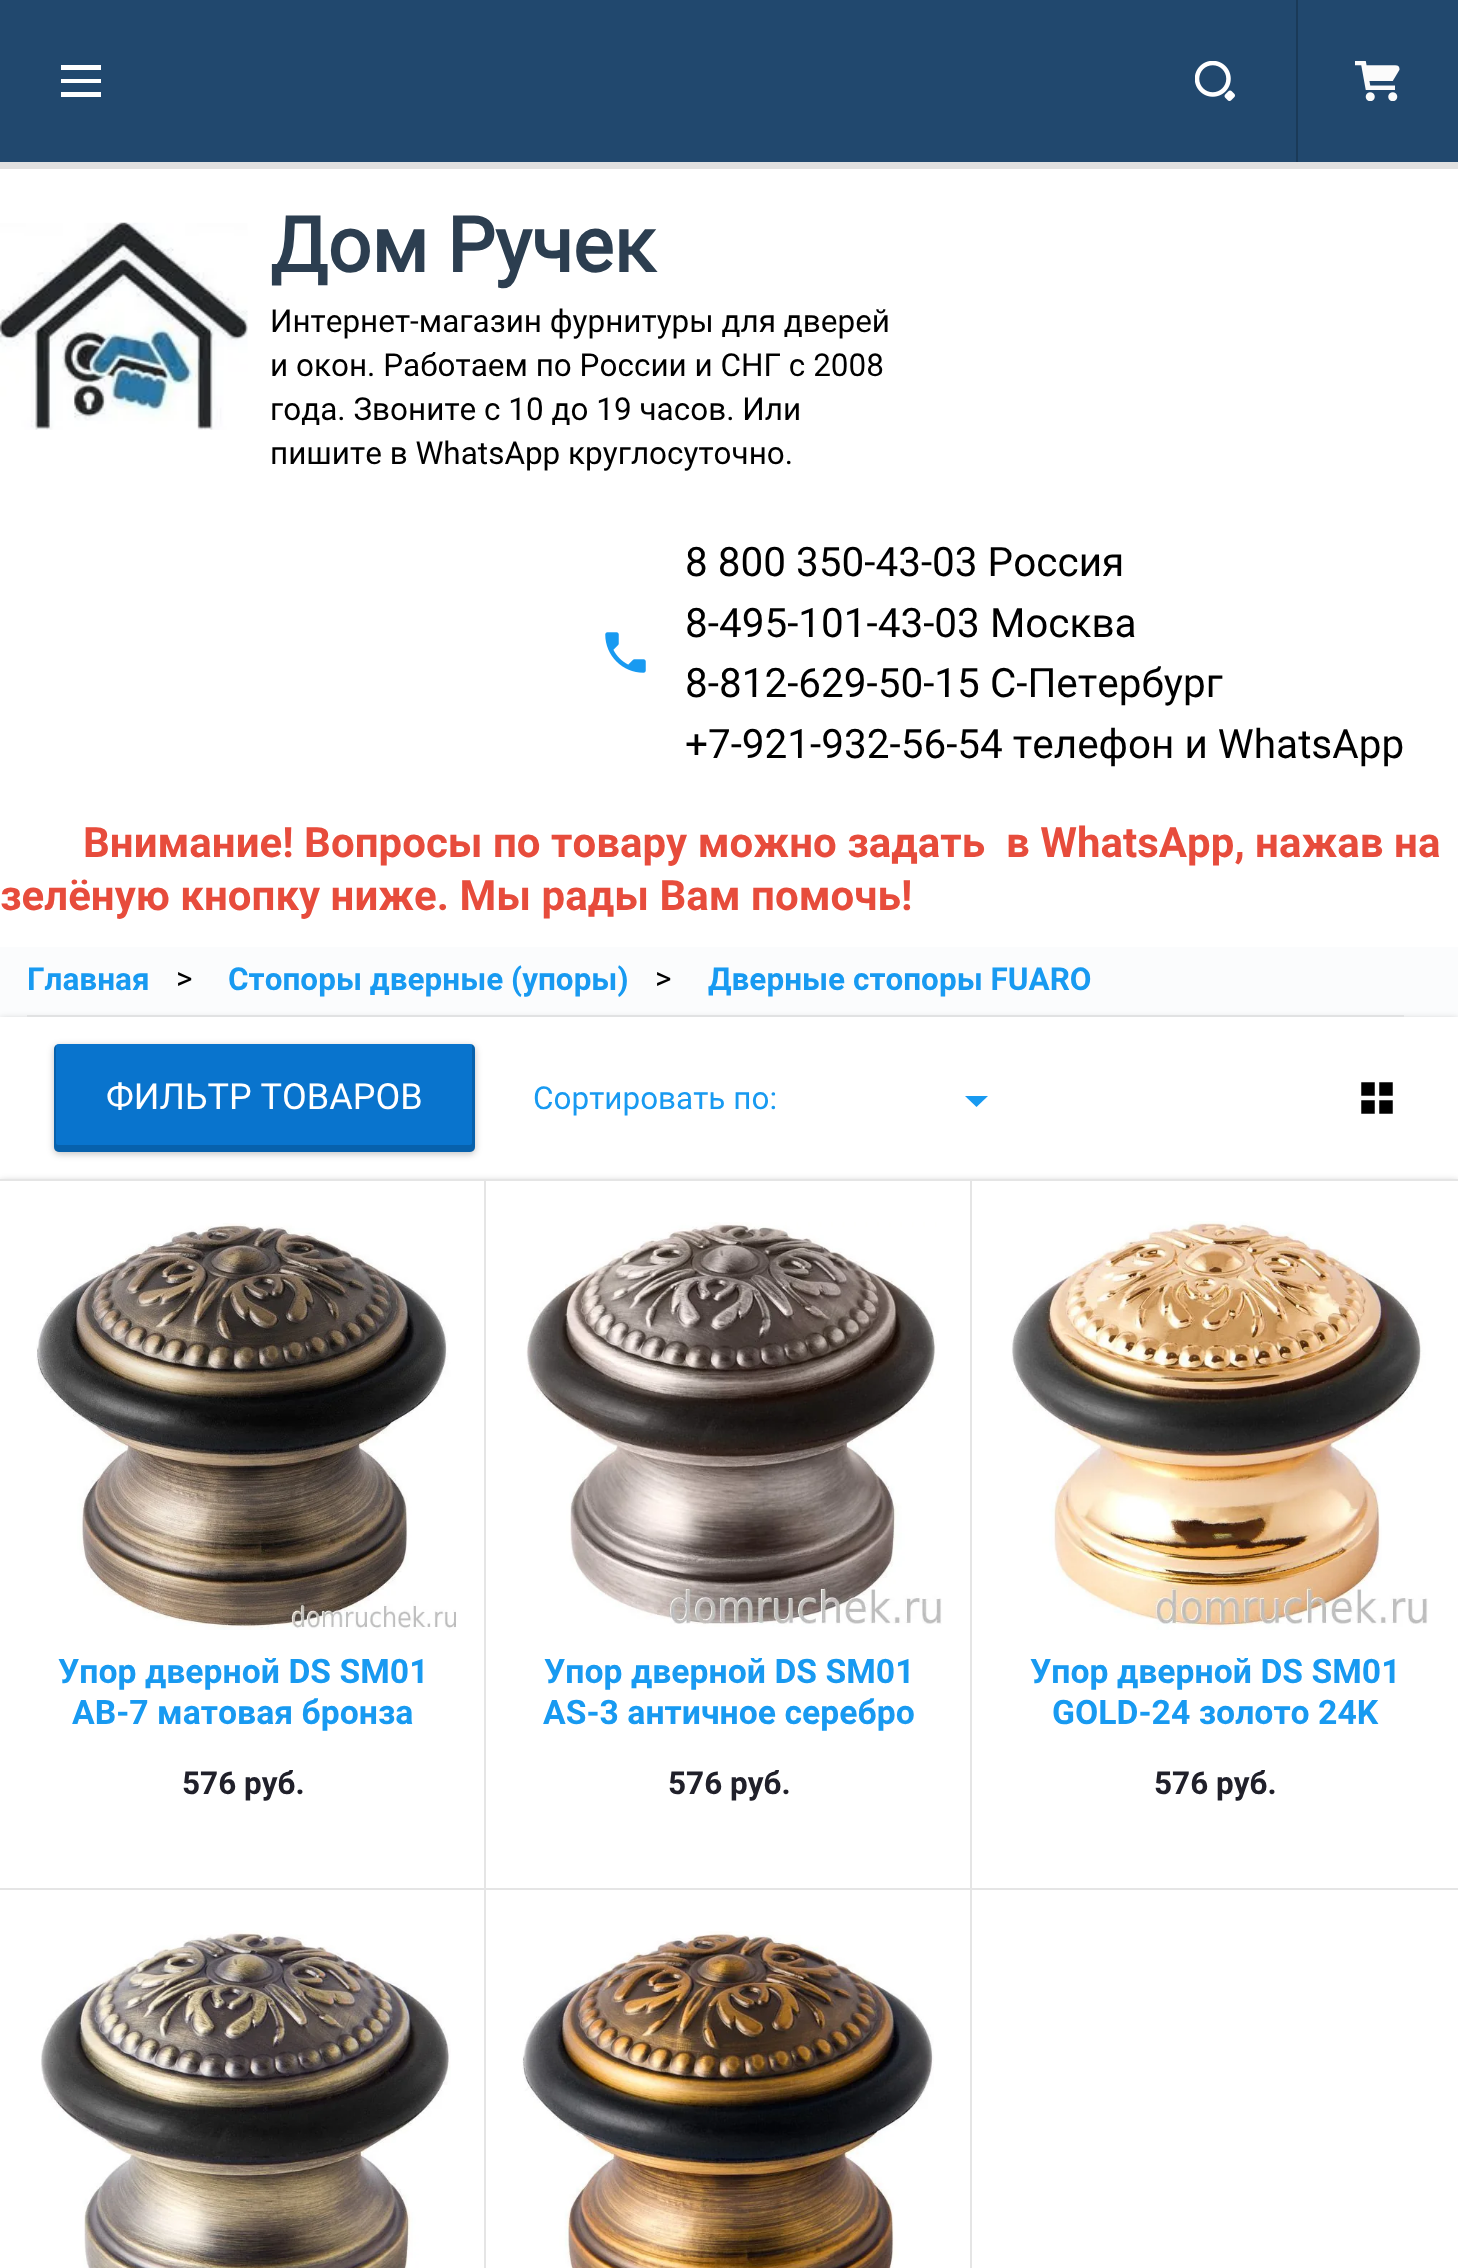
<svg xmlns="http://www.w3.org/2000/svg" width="1458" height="2268">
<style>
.a{font:bold 76.5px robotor;fill:#2c3e50}
.b{font:31.5px robotor;fill:#000}
.c{font:40.5px robotor;fill:#000}
.d{font:bold 42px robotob;fill:#e74c3c}
.e{font:bold 31.5px robotob;fill:#189af1}
.f{font:36px robotor;fill:#fff}
.g{font:31.5px robotor;fill:#189af1}
.h{font:bold 33.75px robotob;fill:#189af1}
.i{font:bold 31.5px robotob;fill:#20202a}
</style>
<rect width="100%" height="100%" fill="#fbfcfd"/>
<path fill="#fff" d="M0 169h1458v778H0z"/>
<path fill="#e0e0e0" d="M0 162h1458v7H0z"/>
<path fill="#21486e" d="M0 0h1458v162H0z"/>
<path fill="#fff" fill-rule="evenodd" d="M61 97v-5h40v5zm0-18h40v4h-40zm0-14h40v5h-40z"/>
<image href="1.png" x="1195" y="61" width="40" height="40"/>
<path fill="#1a3a58" d="M1296 0h2v162H1296z"/>
<image href="2.png" x="1355" y="61" width="45" height="40"/>
<image href="3.png" x="0" y="222" width="248" height="208"/>
<image href="4.png" x="605" y="632" width="41" height="41"/>
<path fill="#0000003d" filter="blur(3.5px)" d="M0 1019h1458v162H0z"/>
<path fill="#e1e2e3" d="M27 1015h1377v2H27z"/>
<path fill="#fff" d="M0 1017h1458v162H0z"/>
<rect fill="#0000003d" filter="blur(3.5px)" x="54" y="1046" width="421" height="108" rx="5"/>
<rect fill="#0974cd" x="54" y="1044" width="421" height="108" rx="5"/>
<path fill="#00000029" d="M56 1045c-1 1-2 2-2 4v98c0 3 2 5 5 5h411c3 0 5-2 5-5v-98c0-2-1-4-3-5v99c0 1-1 2-2 2h-412c-1 0-2-1-2-2z"/>
<path fill="#189af1" d="M965 1096h23l-11.5 11z"/>
<image href="5.png" x="1361" y="1082" width="32" height="32"/>
<path fill="#0000003d" filter="blur(3.5px)" d="M0 1181h1458v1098H0z"/>
<path fill="#fff" d="M0 1181h1458v1087H0z"/>
<path fill="#e5e5e5" d="M0 1179h1458v2H0z"/>
<path fill="#e5e5e5" d="M0 1888h1458v2H0z"/>
<path fill="#e5e5e5" d="M484 1181h2v1087H484z"/>
<image href="6.png" x="36" y="1223" width="420" height="407"/>
<path fill="#e5e5e5" d="M970 1181h2v1087H970z"/>
<image href="7.png" x="526" y="1222" width="416" height="405"/>
<image href="8.png" x="1011" y="1221" width="417" height="409"/>
<image href="9.png" x="41" y="1930" width="410" height="338"/>
<image href="10.png" x="522" y="1931" width="412" height="337"/>
<text class="a" x="270" y="272">Дом Ручек</text>
<text class="b" x="270" y="332">Интернет-магазин фурнитуры для дверей</text>
<text class="b" x="270" y="376">и окон. Работаем по России и СНГ с 2008</text>
<text class="b" x="270" y="420">года. Звоните с 10 до 19 часов. Или</text>
<text class="b" x="270" y="464">пишите в WhatsApp круглосуточно.</text>
<text class="c" x="685" y="576">8 800 350-43-03 Россия</text>
<text class="c" x="685" y="637">8-495-101-43-03 Москва</text>
<text class="c" x="685" y="697">8-812-629-50-15 С-Петербург</text>
<text class="c" x="685" y="758">+7-921-932-56-54 телефон и WhatsApp</text>
<text class="d" xml:space="preserve" x="83" y="857">Внимание! Вопросы по товару можно задать  в WhatsApp, нажав на</text>
<text class="d" x="0" y="910">зелёную кнопку ниже. Мы рады Вам помочь!</text>
<text class="e" x="27" y="990">Главная</text>
<text class="b" x="176" y="989">&gt;</text>
<text class="e" x="228" y="990">Стопоры дверные (упоры)</text>
<text class="b" x="655" y="989">&gt;</text>
<text class="e" x="708" y="990">Дверные стопоры FUARO</text>
<text class="f" x="106" y="1109">ФИЛЬТР ТОВАРОВ</text>
<text class="g" x="533" y="1109">Сортировать по:</text>
<text class="h" x="58" y="1683">Упор дверной DS SM01</text>
<text class="h" x="72" y="1724">AB-7 матовая бронза</text>
<text class="i" x="182" y="1794">576 руб.</text>
<text class="h" x="544" y="1683">Упор дверной DS SM01</text>
<text class="h" x="543" y="1724">AS-3 античное серебро</text>
<text class="i" x="668" y="1794">576 руб.</text>
<text class="h" x="1030" y="1683">Упор дверной DS SM01</text>
<text class="h" x="1052" y="1724">GOLD-24 золото 24K</text>
<text class="i" x="1154" y="1794">576 руб.</text>
</svg>
